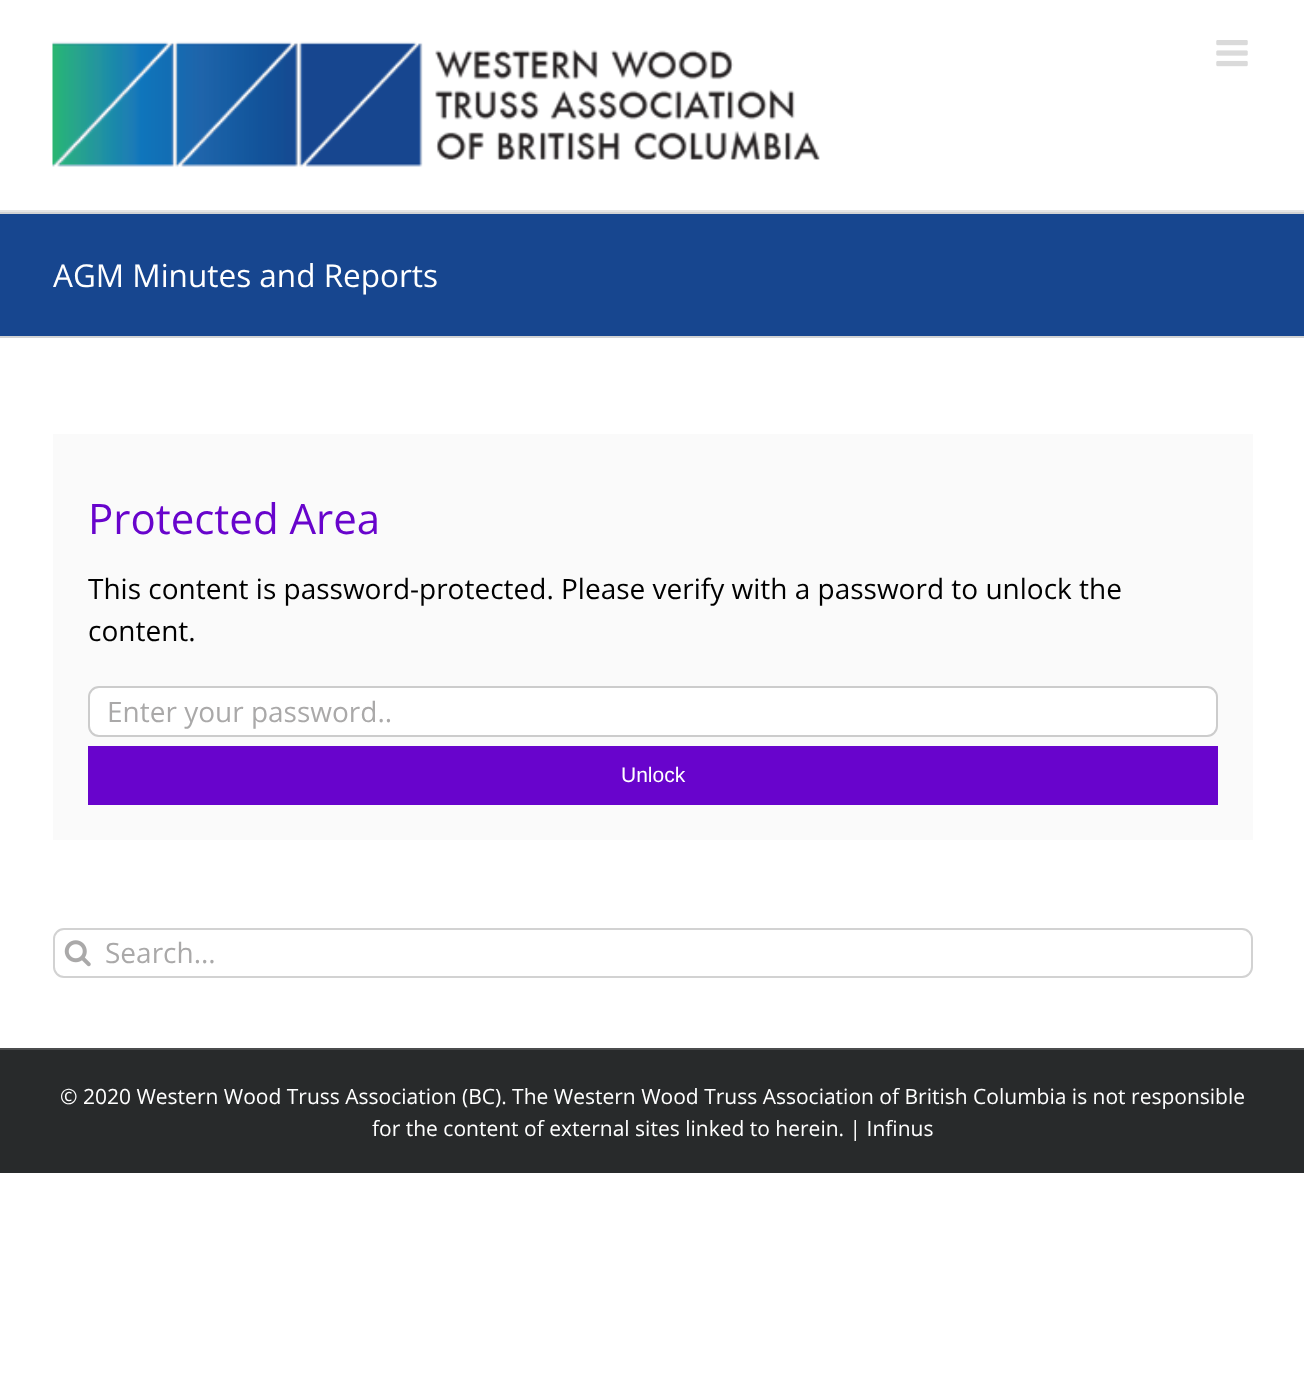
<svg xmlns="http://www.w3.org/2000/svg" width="1304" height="1383">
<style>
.a{font:31.5px Open Sans;fill:#fff}
.b{font:42px Open Sans;fill:#6804cc}
.c{font:28px Open Sans;fill:#000}
.d{font:28px Open Sans;fill:#aaa9a9}
.e{font:21px Liberation Sans;fill:#fff}
.f{font:21px Open Sans;fill:#fff}
</style>
<rect width="100%" height="100%" fill="#fff"/>
<path fill="#e5e5e5" d="M0 210h1304v2H0z"/>
<image href="1.png" x="52" y="41" width="768" height="126"/>
<image href="2.png" x="1216" y="40" width="32" height="27"/>
<path fill="#17468f" d="M0 214h1304v122H0z"/>
<path fill="#d2d3d4" d="M0 212h1304v2H0z"/>
<path fill="#d2d3d4" d="M0 336h1304v2H0z"/>
<path fill="#fafafa" d="M53 434h1200v406H53z"/>
<rect fill="#fff" stroke="#ccc" stroke-width="2" x="89" y="687" width="1128" height="49" rx="10"/>
<path fill="#6804cc" d="M88 746h1130v59H88z"/>
<rect fill="none" stroke="#d2d2d2" stroke-width="2" x="54" y="929" width="1198" height="48" rx="10"/>
<image href="3.png" x="64" y="940" width="27" height="27"/>
<path fill="#282a2b" d="M0 1050h1304v123H0z"/>
<path fill="#4b4c4d" d="M0 1048h1304v2H0z"/>
<text class="a" x="53" y="287">AGM Minutes and Reports</text>
<text class="b" x="88" y="534">Protected Area</text>
<text class="c" x="88" y="599">This content is password-protected. Please verify with a password to unlock the</text>
<text class="c" x="88" y="641">content.</text>
<text class="d" x="107" y="722">Enter your password..</text>
<text class="e" x="621" y="782">Unlock</text>
<text class="d" x="105" y="963">Search...</text>
<text class="f" x="60" y="1104">© 2020 Western Wood Truss Association (BC). The Western Wood Truss Association of British Columbia is not responsible</text>
<text class="f" x="372" y="1136">for the content of external sites linked to herein. | Infinus</text>
</svg>
